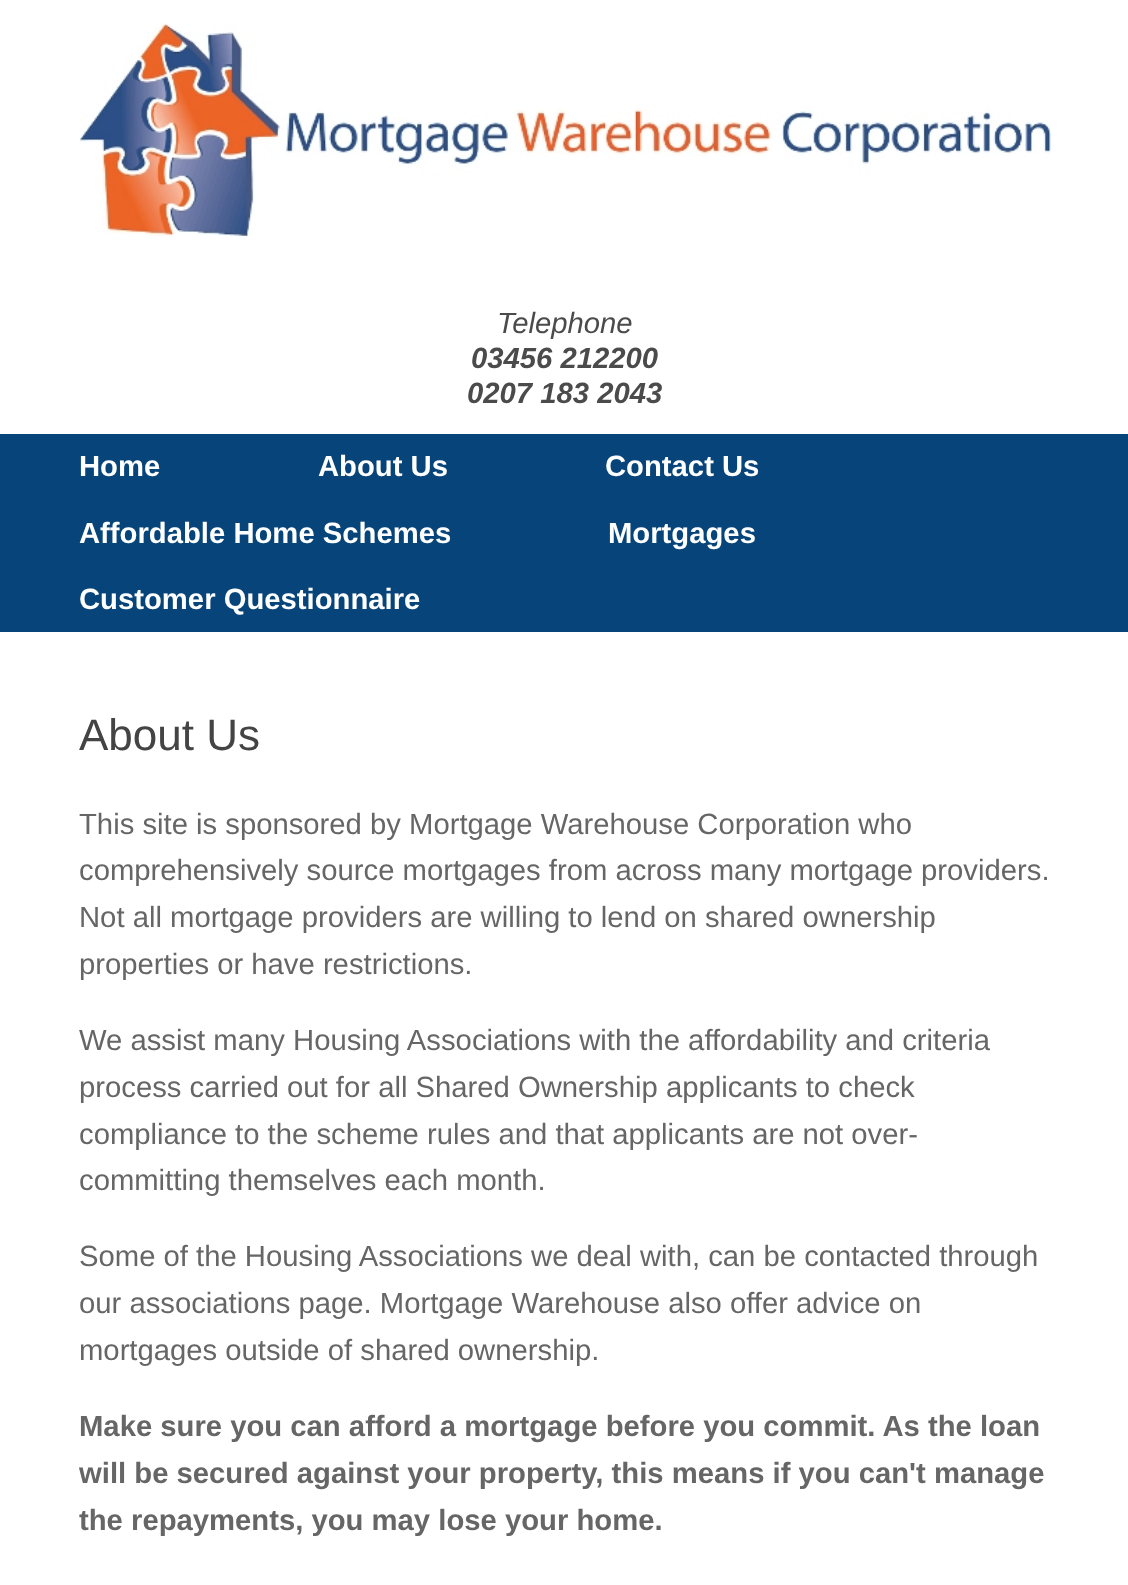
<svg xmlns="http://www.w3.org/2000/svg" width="1128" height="1585">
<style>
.a{font:italic 29.25px Liberation Sans;fill:#4b4b4b}
.b{font:italic bold 29.25px Liberation Sans;fill:#4b4b4b}
.c{font:bold 29.25px Liberation Sans;fill:#fff}
.d{font:44px Liberation Sans;fill:#444}
.e{font:29.25px Liberation Sans;fill:#666}
.f{font:bold 29.25px Liberation Sans;fill:#666}
</style>
<rect width="100%" height="100%" fill="#fff"/>
<image href="1.png" x="80" y="23" width="971" height="215"/>
<path fill="#07447a" d="M0 434h1128v198H0z"/>
<text class="a" x="497" y="333">Telephone</text>
<text class="b" x="471" y="368">03456 212200</text>
<text class="b" x="467" y="403">0207 183 2043</text>
<text class="c" x="79" y="476">Home</text>
<text class="c" x="318" y="476">About Us</text>
<text class="c" x="605" y="476">Contact Us</text>
<text class="c" x="79" y="543">Affordable Home Schemes</text>
<text class="c" x="608" y="543">Mortgages</text>
<text class="c" x="79" y="609">Customer Questionnaire</text>
<text class="d" x="79" y="750">About Us</text>
<text class="e" x="79" y="834">This site is sponsored by Mortgage Warehouse Corporation who</text>
<text class="e" x="79" y="880">comprehensively source mortgages from across many mortgage providers.</text>
<text class="e" x="79" y="927">Not all mortgage providers are willing to lend on shared ownership</text>
<text class="e" x="79" y="974">properties or have restrictions.</text>
<text class="e" x="79" y="1050">We assist many Housing Associations with the affordability and criteria</text>
<text class="e" x="79" y="1097">process carried out for all Shared Ownership applicants to check</text>
<text class="e" x="79" y="1144">compliance to the scheme rules and that applicants are not over-</text>
<text class="e" x="79" y="1190">committing themselves each month.</text>
<text class="e" x="79" y="1266">Some of the Housing Associations we deal with, can be contacted through</text>
<text class="e" x="79" y="1313">our associations page. Mortgage Warehouse also offer advice on</text>
<text class="e" x="79" y="1360">mortgages outside of shared ownership.</text>
<text class="f" x="79" y="1436">Make sure you can afford a mortgage before you commit. As the loan</text>
<text class="f" x="79" y="1483">will be secured against your property, this means if you can't manage</text>
<text class="f" x="79" y="1530">the repayments, you may lose your home.</text>
</svg>
